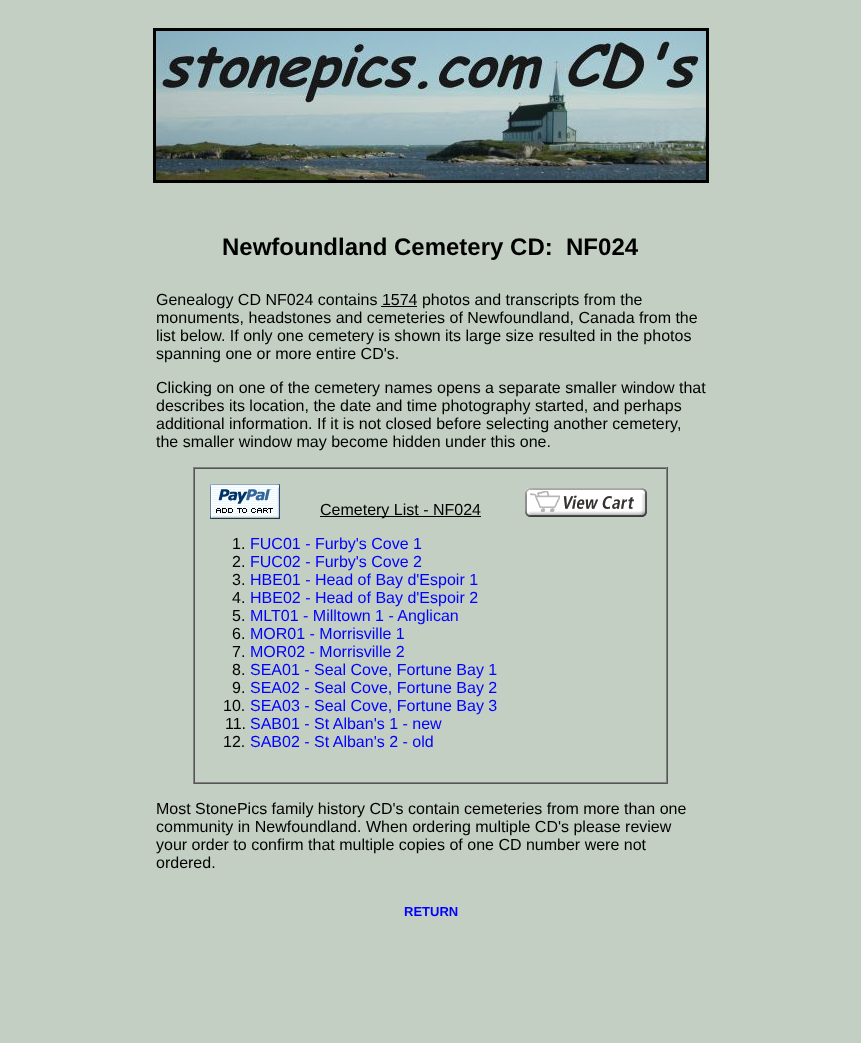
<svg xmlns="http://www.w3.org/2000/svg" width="861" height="1043">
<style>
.a{font:bold 24px Liberation Sans;fill:#000}
.b{font:16px Liberation Sans;fill:#000}
.c{font:16px Liberation Sans;fill:#00f}
.d{font:bold 13px Liberation Sans;fill:#00f}
</style>
<rect width="100%" height="100%" fill="#c2cfc2"/>
<path fill="none" stroke="#000" stroke-width="3" d="M154.5 29.5h553v152H154.5z"/>
<image href="1.png" x="156" y="31" width="550" height="149"/>
<path fill="#000" d="M381 306h36v1H381z"/>
<path fill="#808080" d="M193 467h475v1H193z"/>
<path fill="#555" d="M667 467h1v317H667z"/>
<path fill="#555" d="M193 783h475v1H193z"/>
<path fill="#808080" d="M193 467h1v317H193z"/>
<path fill="#555" d="M194 468h473v1H194z"/>
<path fill="#808080" d="M666 468h1v315H666z"/>
<path fill="#808080" d="M194 782h473v1H194z"/>
<path fill="#555" d="M194 468h1v315H194z"/>
<image href="2.png" x="210" y="484" width="70" height="35"/>
<path fill="#000" d="M320 516h161v1H320z"/>
<image href="3.png" x="525" y="488" width="122" height="29"/>
<text class="a" xml:space="preserve" x="222" y="255">Newfoundland Cemetery CD:  NF024</text>
<text class="b" x="156" y="305">Genealogy CD NF024 contains 1574 photos and transcripts from the</text>
<text class="b" x="156" y="323">monuments, headstones and cemeteries of Newfoundland, Canada from the</text>
<text class="b" x="156" y="341">list below. If only one cemetery is shown its large size resulted in the photos</text>
<text class="b" x="156" y="359">spanning one or more entire CD's.</text>
<text class="b" x="156" y="393">Clicking on one of the cemetery names opens a separate smaller window that</text>
<text class="b" x="156" y="411">describes its location, the date and time photography started, and perhaps</text>
<text class="b" x="156" y="429">additional information. If it is not closed before selecting another cemetery,</text>
<text class="b" x="156" y="447">the smaller window may become hidden under this one.</text>
<text class="b" x="320" y="515">Cemetery List - NF024</text>
<text class="b" x="232" y="549">1.</text>
<text class="c" x="250" y="549">FUC01 - Furby's Cove 1</text>
<text class="b" x="232" y="567">2.</text>
<text class="c" x="250" y="567">FUC02 - Furby's Cove 2</text>
<text class="b" x="232" y="585">3.</text>
<text class="c" x="250" y="585">HBE01 - Head of Bay d'Espoir 1</text>
<text class="b" x="232" y="603">4.</text>
<text class="c" x="250" y="603">HBE02 - Head of Bay d'Espoir 2</text>
<text class="b" x="232" y="621">5.</text>
<text class="c" x="250" y="621">MLT01 - Milltown 1 - Anglican</text>
<text class="b" x="232" y="639">6.</text>
<text class="c" x="250" y="639">MOR01 - Morrisville 1</text>
<text class="b" x="232" y="657">7.</text>
<text class="c" x="250" y="657">MOR02 - Morrisville 2</text>
<text class="b" x="232" y="675">8.</text>
<text class="c" x="250" y="675">SEA01 - Seal Cove, Fortune Bay 1</text>
<text class="b" x="232" y="693">9.</text>
<text class="c" x="250" y="693">SEA02 - Seal Cove, Fortune Bay 2</text>
<text class="b" x="223" y="711">10.</text>
<text class="c" x="250" y="711">SEA03 - Seal Cove, Fortune Bay 3</text>
<text class="b" x="225" y="729">11.</text>
<text class="c" x="250" y="729">SAB01 - St Alban's 1 - new</text>
<text class="b" x="223" y="747">12.</text>
<text class="c" x="250" y="747">SAB02 - St Alban's 2 - old</text>
<text class="b" x="156" y="814">Most StonePics family history CD's contain cemeteries from more than one</text>
<text class="b" x="156" y="832">community in Newfoundland. When ordering multiple CD's please review</text>
<text class="b" x="156" y="850">your order to confirm that multiple copies of one CD number were not</text>
<text class="b" x="156" y="868">ordered.</text>
<text class="d" x="404" y="916">RETURN</text>
</svg>
